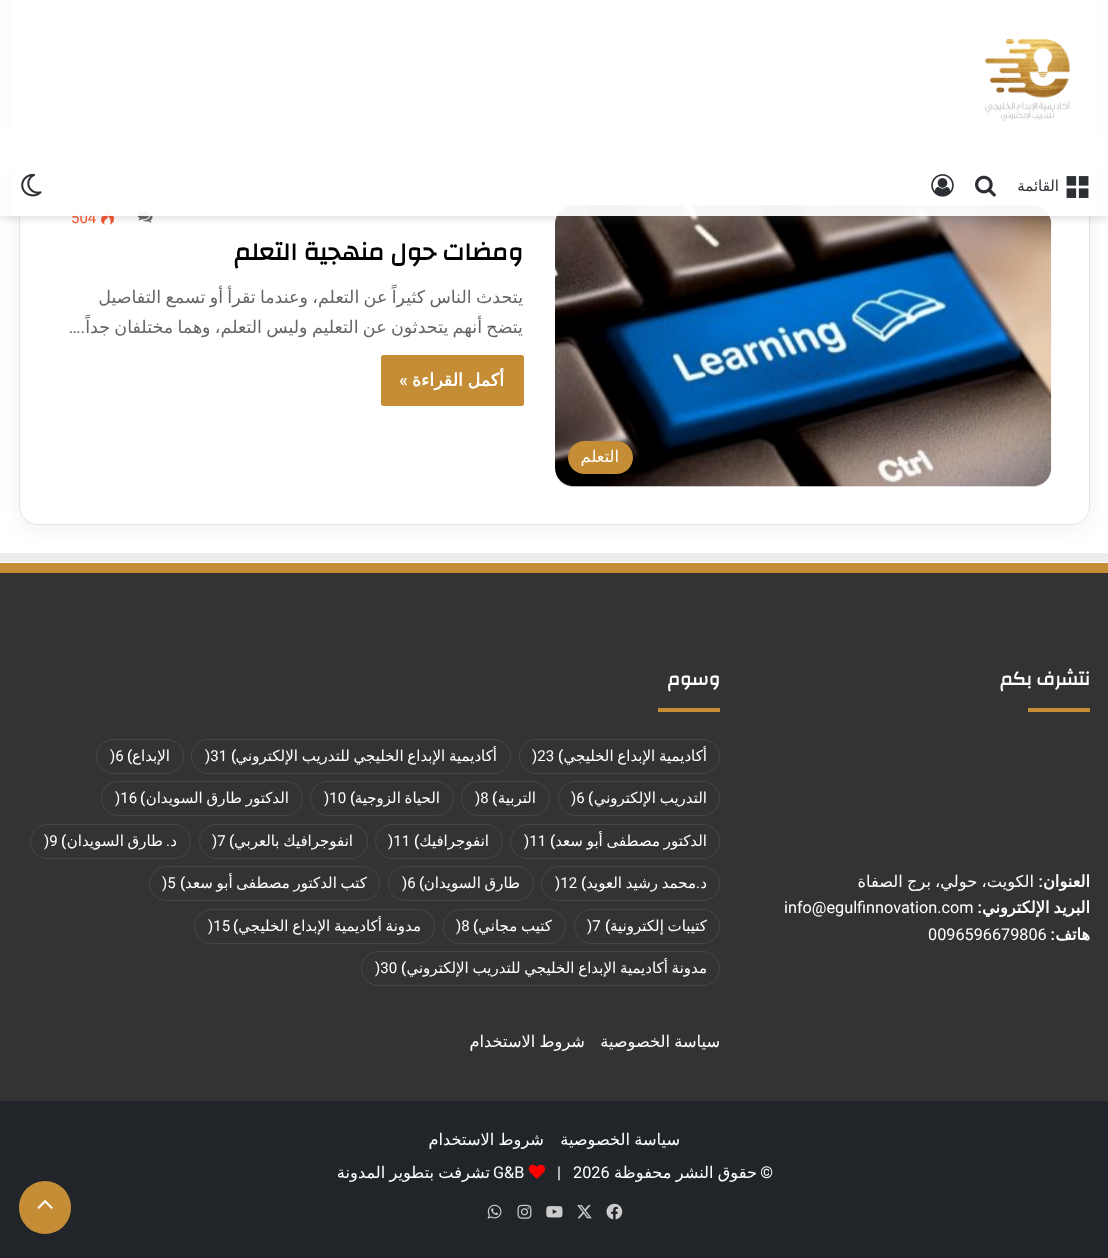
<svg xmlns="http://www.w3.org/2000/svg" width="1108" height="1258">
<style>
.a{font:15px Roboto;fill:#f3502a}
.b{font:15px DejaVu Sans;direction:rtl;fill:#2c2f34}
.c{font:bold 25px Changa;direction:rtl;fill:#000}
.d{font:17.5px DejaVu Sans;direction:rtl;fill:#666}
.e{font:17.5px Roboto;direction:rtl;fill:#666}
.f{font:bold 17.5px DejaVu Sans;direction:rtl;fill:#fff}
.g{font:600 17.5px Roboto;direction:rtl;fill:#fff}
.h{font:16.25px DejaVu Sans;direction:rtl;fill:#fff}
.i{font:bold 18.75px Changa;direction:rtl;fill:#fff}
.j{font:bold 16.25px DejaVu Sans;direction:rtl;fill:#fff}
.k{font:600 16.25px Roboto;direction:rtl;fill:#fff}
.l{font:16.25px Roboto;fill:#fff}
.m{font:15px DejaVu Sans;direction:rtl;fill:#fff}
.n{font:500 15px Roboto;fill:#fff}
.o{font:15px Roboto;fill:#fff}
.p{font:15px Roboto;direction:rtl;fill:#fff}
.q{font:16.25px Roboto;direction:rtl;fill:#fff}
</style>
<defs>
<clipPath id="clip1"><path d="M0 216h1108v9H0z"/></clipPath>
<clipPath id="clip2"><path d="M19 1028h701v30H19z"/></clipPath>
</defs>
<rect width="100%" height="100%" fill="#fff"/>
<rect fill="#0000000d" filter="blur(9.5px)" x="19" y="-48" width="1071" height="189" rx="19"/>
<rect fill="#fff" stroke="#e5e5e5" x="19.5" y="-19.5" width="1070" height="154" rx="18.5"/>
<path fill="#ededed" d="M0 553v9h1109v529v-538z"/>
<rect fill="#0000000d" filter="blur(9.5px)" x="19" y="160" width="1071" height="371" rx="19"/>
<rect fill="#fff" stroke="#e5e5e5" x="19.5" y="154.5" width="1070" height="370" rx="18.5"/>
<image href="6.png" x="137" y="210" width="16" height="13"/>
<image href="7.png" x="101" y="209" width="13" height="16"/>
<image href="8.png" x="555" y="205" width="497" height="282"/>
<g clip-path="url(#clip1)">
<path fill="#63636333" filter="blur(5px)" d="M0 3h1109v216H0z"/>
</g>
<rect fill="#c58e36" x="381" y="355" width="143" height="51" rx="2.5"/>
<rect fill="#c58e36" x="568" y="441" width="65" height="33" rx="16.5"/>
<path fill="#333" d="M0 573h1108v528H0z"/>
<path fill="#c58e36" d="M0 563h1108v10H0z"/>
<path fill="#c58e36" d="M1028 708h62v4H1028z"/>
<path fill="#c58e36" d="M658 708h62v4H658z"/>
<rect fill="none" stroke="#464646" x="519.5" y="739.5" width="200" height="34" rx="17"/>
<rect fill="none" stroke="#464646" x="191.5" y="739.5" width="319" height="34" rx="17"/>
<rect fill="none" stroke="#464646" x="96.5" y="739.5" width="87" height="34" rx="17"/>
<rect fill="none" stroke="#464646" x="558.5" y="781.5" width="161" height="34" rx="17"/>
<rect fill="none" stroke="#464646" x="461.5" y="781.5" width="88" height="34" rx="17"/>
<rect fill="none" stroke="#464646" x="310.5" y="781.5" width="143" height="34" rx="17"/>
<rect fill="none" stroke="#464646" x="101.5" y="781.5" width="201" height="34" rx="17"/>
<rect fill="none" stroke="#464646" x="510.5" y="824.5" width="209" height="34" rx="17"/>
<rect fill="none" stroke="#464646" x="375.5" y="824.5" width="127" height="34" rx="17"/>
<rect fill="none" stroke="#464646" x="199.5" y="824.5" width="168" height="34" rx="17"/>
<rect fill="none" stroke="#464646" x="30.5" y="824.5" width="160" height="34" rx="17"/>
<rect fill="none" stroke="#464646" x="541.5" y="866.5" width="178" height="34" rx="17"/>
<rect fill="none" stroke="#464646" x="388.5" y="866.5" width="145" height="34" rx="17"/>
<rect fill="none" stroke="#464646" x="149.5" y="866.5" width="230" height="34" rx="17"/>
<rect fill="none" stroke="#464646" x="574.5" y="909.5" width="145" height="34" rx="17"/>
<rect fill="none" stroke="#464646" x="443.5" y="909.5" width="122" height="34" rx="17"/>
<rect fill="none" stroke="#464646" x="194.5" y="909.5" width="240" height="34" rx="17"/>
<rect fill="none" stroke="#464646" x="361.5" y="951.5" width="358" height="34" rx="17"/>
<path fill="#212529" d="M0 1101h1108v157H0z"/>
<image href="9.png" x="528" y="1164" width="17" height="15"/>
<image href="10.png" x="606" y="1203" width="17" height="17"/>
<image href="11.png" x="577" y="1205" width="15" height="14"/>
<image href="12.png" x="546" y="1206" width="17" height="12"/>
<image href="13.png" x="517" y="1204" width="15" height="15"/>
<image href="14.png" x="487" y="1204" width="15" height="15"/>
<rect fill="#c58e36" x="19" y="1181" width="52" height="53" rx="26"/>
<image href="15.png" x="37" y="1200" width="16" height="9"/>
<text class="a" x="71" y="223">504</text>
<path fill="#fffffff2" d="M12 0h1085v216H12z"/>
<image href="4.png" x="931" y="174" width="23" height="23"/>
<image href="3.png" x="975" y="175" width="21" height="22"/>
<image href="2.png" x="1066" y="176" width="23" height="22"/>
<text class="b" x="1059" y="191">القائمة</text>
<image href="5.png" x="21" y="173" width="21" height="24"/>
<image href="1.png" x="984" y="39" width="87" height="82"/>
<text class="c" x="523" y="260">ومضات حول منهجية التعلم</text>
<text class="d" x="523" y="303" word-spacing="-1.25">يتحدث الناس كثيراً عن التعلم، وعندما تقرأ أو تسمع التفاصيل</text>
<text class="d" x="523" y="333" word-spacing="-1.25">يتضح أنهم يتحدثون عن التعليم وليس التعلم، وهما مختلفان جداً</text>
<text class="e" x="85" y="333">.…</text>
<text class="f" x="504" y="386" word-spacing="-1">أكمل القراءة</text>
<text class="g" x="408" y="386">»</text>
<text class="h" x="619" y="462">التعلم</text>
<text class="i" x="1090" y="685">نتشرف بكم</text>
<text class="j" x="1090" y="887">العنوان</text>
<text class="k" x="1043" y="887">:</text>
<text class="h" x="1034" y="887" word-spacing="-1">الكويت، حولي، برج الصفاة</text>
<text class="j" x="1090" y="913" word-spacing="-1">البريد الإلكتروني</text>
<text class="k" x="982" y="913">:</text>
<text class="l" x="784" y="913">info@egulfinnovation.com</text>
<text class="j" x="1090" y="940">هاتف</text>
<text class="k" x="1055" y="940">:</text>
<text class="l" x="928" y="940">0096596679806</text>
<text class="i" x="720" y="685">وسوم</text>
<text class="m" x="707" y="761" word-spacing="-1">أكاديمية الإبداع الخليجي</text>
<text class="n" x="558" y="761">(</text>
<text class="o" x="532" y="761">)23</text>
<text class="m" x="497" y="761" word-spacing="-1">أكاديمية الإبداع الخليجي للتدريب الإلكتروني</text>
<text class="n" x="231" y="761">(</text>
<text class="o" x="205" y="761">)31</text>
<text class="m" x="170" y="761">الإبداع</text>
<text class="n" x="127" y="761">(</text>
<text class="o" x="110" y="761">)6</text>
<text class="m" x="707" y="803" word-spacing="-1">التدريب الإلكتروني</text>
<text class="n" x="588" y="803">(</text>
<text class="o" x="571" y="803">)6</text>
<text class="m" x="536" y="803">التربية</text>
<text class="n" x="492" y="803">(</text>
<text class="o" x="475" y="803">)8</text>
<text class="m" x="440" y="803" word-spacing="-1">الحياة الزوجية</text>
<text class="n" x="350" y="803">(</text>
<text class="o" x="324" y="803">)10</text>
<text class="m" x="289" y="803" word-spacing="-1">الدكتور طارق السويدان</text>
<text class="n" x="140" y="803">(</text>
<text class="o" x="115" y="803">)16</text>
<text class="m" x="707" y="846" word-spacing="-1">الدكتور مصطفى أبو سعد</text>
<text class="n" x="550" y="846">(</text>
<text class="o" x="524" y="846">)11</text>
<text class="m" x="489" y="846">انفوجرافيك</text>
<text class="n" x="414" y="846">(</text>
<text class="o" x="388" y="846">)11</text>
<text class="m" x="353" y="846" word-spacing="-1">انفوجرافيك بالعربي</text>
<text class="n" x="229" y="846">(</text>
<text class="o" x="212" y="846">)7</text>
<text class="m" x="177" y="846">د</text>
<text class="p" x="170" y="846">.</text>
<text class="m" x="163" y="846" word-spacing="-1">طارق السويدان</text>
<text class="n" x="61" y="846">(</text>
<text class="o" x="44" y="846">)9</text>
<text class="m" x="707" y="888">د</text>
<text class="p" x="700" y="888">.</text>
<text class="m" x="696" y="888" word-spacing="-1">محمد رشيد العويد</text>
<text class="n" x="581" y="888">(</text>
<text class="o" x="555" y="888">)12</text>
<text class="m" x="520" y="888" word-spacing="-1">طارق السويدان</text>
<text class="n" x="419" y="888">(</text>
<text class="o" x="402" y="888">)6</text>
<text class="m" x="367" y="888" word-spacing="-1">كتب الدكتور مصطفى أبو سعد</text>
<text class="n" x="180" y="888">(</text>
<text class="o" x="162" y="888">)5</text>
<text class="m" x="707" y="931" word-spacing="-1">كتيبات إلكترونية</text>
<text class="n" x="605" y="931">(</text>
<text class="o" x="587" y="931">)7</text>
<text class="m" x="552" y="931" word-spacing="-1">كتيب مجاني</text>
<text class="n" x="473" y="931">(</text>
<text class="o" x="456" y="931">)8</text>
<text class="m" x="421" y="931" word-spacing="-1">مدونة أكاديمية الإبداع الخليجي</text>
<text class="n" x="233" y="931">(</text>
<text class="o" x="208" y="931">)15</text>
<text class="m" x="707" y="973" word-spacing="-1">مدونة أكاديمية الإبداع الخليجي للتدريب الإلكتروني</text>
<text class="n" x="401" y="973">(</text>
<text class="o" x="375" y="973">)30</text>
<g clip-path="url(#clip2)">
<text class="h" x="720" y="1047" word-spacing="-1">سياسة الخصوصية</text>
</g>
<text class="h" x="585" y="1047" word-spacing="-1">شروط الاستخدام</text>
<text class="h" x="680" y="1145" word-spacing="-1">سياسة الخصوصية</text>
<text class="h" x="544" y="1145" word-spacing="-1">شروط الاستخدام</text>
<text class="q" x="773" y="1178">©</text>
<text class="h" x="757" y="1178" word-spacing="-1">حقوق النشر محفوظة</text>
<text class="l" x="573" y="1178">2026</text>
<text class="l" x="557" y="1178">|</text>
<text class="l" x="493" y="1178">G&amp;B</text>
<text class="h" x="490" y="1178" word-spacing="-1">تشرفت بتطوير المدونة</text>
</svg>
